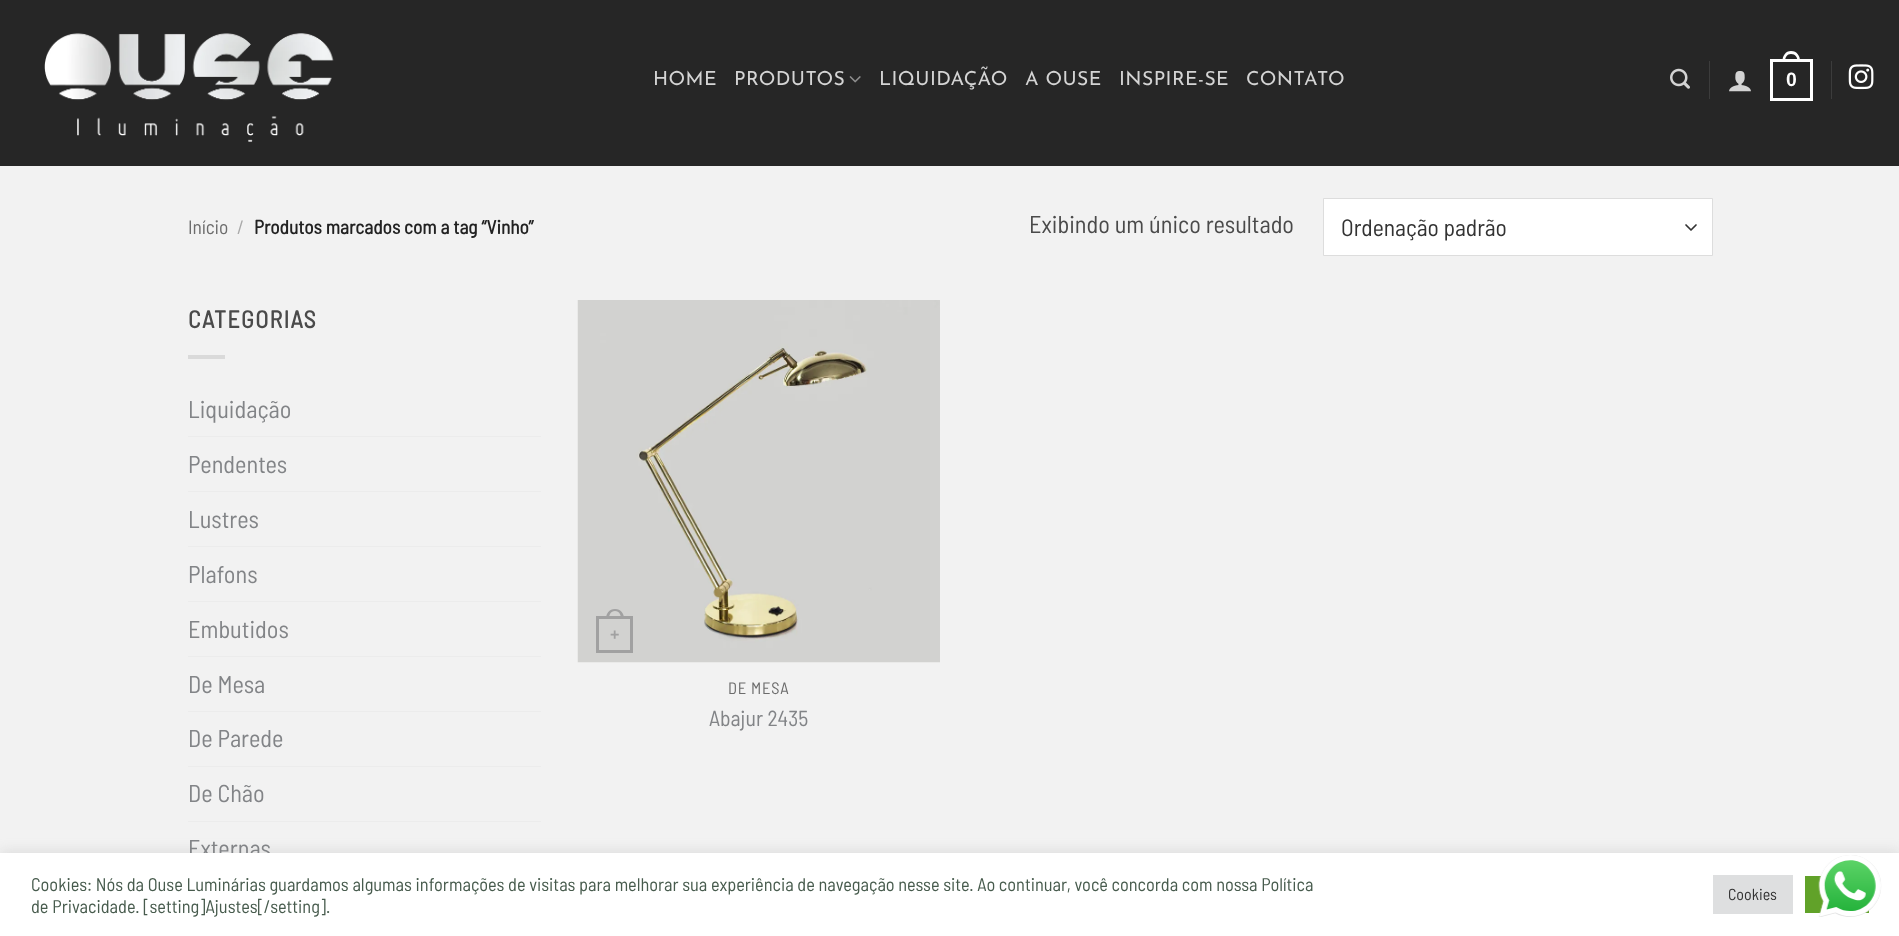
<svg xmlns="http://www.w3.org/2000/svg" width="1899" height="936">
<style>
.a{font:100 19.4px Josefin Sans;letter-spacing:0.4px;fill:#d4d4d4}
.b{font:bold 19.4px Liberation Sans;letter-spacing:0.4px;fill:#fff}
.c{font:19.4px Barlow Semi Condensed;fill:#6c6c6c}
.d{font:19.4px Barlow Semi Condensed;fill:#a9a9a9}
.e{font:bold 19.4px Barlow Semi Condensed;fill:#222}
.f{font:24.25px Barlow Semi Condensed;fill:#4a4a4a}
.g{font:23.5px Barlow Semi Condensed;fill:#333}
.h{font:bold 24.25px Barlow Semi Condensed;letter-spacing:1.25px;fill:#4a4a4a}
.i{font:24.25px Barlow Semi Condensed;fill:#828487}
.j{font:bold 16px Liberation Sans;fill:#a1a1a1}
.k{font:16.5px Barlow Semi Condensed;letter-spacing:0.75px;fill:#6c6c6c}
.l{font:21.75px Barlow Semi Condensed;fill:#828487}
.m{font:18.33px Barlow Semi Condensed;fill:#475b4d}
.n{font:16px Barlow Semi Condensed;fill:#333}
</style>
<rect width="100%" height="100%" fill="#f2f2f2"/>
<path fill="#262626" d="M0 0h1899v166H0z"/>
<image href="1.png" x="44" y="33" width="290" height="109"/>
<image href="2.png" x="849" y="76" width="12" height="7"/>
<image href="3.png" x="1670" y="68" width="20" height="21"/>
<path fill="#3c3c3c" d="M1709 61h1v38H1709z"/>
<image href="4.png" x="1729" y="71" width="22" height="21"/>
<path fill="none" stroke="#fff" stroke-width="3" d="M1771.5 60.5h40v39H1771.5z"/>
<path fill="#fff" fill-rule="evenodd" d="M1791 51c6 0 9 5 9 10h-17.5c0-5 3-10 8.5-10zm0 3c4.5 0 6.5 3.5 6.5 7h-12.5c0-3.5 2-7 6-7z"/>
<path fill="#3c3c3c" d="M1831 61h1v38H1831z"/>
<image href="5.png" x="1848" y="64" width="26" height="26"/>
<path fill="#fff" d="M1324 199h388v56H1324z"/>
<path fill="none" stroke="#333" stroke-width="1.7" stroke-linecap="round" stroke-linejoin="round" d="M1686 225l5 5l5-5"/>
<path fill="none" stroke="#ddd" d="M1323.5 198.5h389v57H1323.5z"/>
<path fill="#dadada" d="M188 355h37v4H188z"/>
<path fill="#ececec" d="M188 436h353v1H188z"/>
<path fill="#ececec" d="M188 491h353v1H188z"/>
<path fill="#ececec" d="M188 546h353v1H188z"/>
<path fill="#ececec" d="M188 601h353v1H188z"/>
<path fill="#ececec" d="M188 656h353v1H188z"/>
<path fill="#ececec" d="M188 711h353v1H188z"/>
<path fill="#ececec" d="M188 766h353v1H188z"/>
<path fill="#ececec" d="M188 821h353v1H188z"/>
<image href="6.png" x="577" y="300" width="363" height="363"/>
<path fill="none" stroke="#a1a1a1" stroke-width="3" d="M597.5 617.5h34v34H597.5z"/>
<path fill="#a1a1a1" fill-rule="evenodd" d="M615 609c6 0 9 4.5 9 10h-18c0-5.5 3-10 9-10zm0 2c4.5 0 6 4 6 8h-12c0-4 1.5-8 6-8z"/>
<path fill="#acabab4d" filter="blur(6px)" d="M0 851h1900v84H0z"/>
<text class="a" x="653" y="85">HOME</text>
<text class="a" x="734" y="85">PRODUTOS</text>
<text class="a" x="879" y="85">LIQUIDAÇÃO</text>
<text class="a" x="1025" y="85">A OUSE</text>
<text class="a" x="1119" y="85">INSPIRE-SE</text>
<text class="a" x="1246" y="85">CONTATO</text>
<text class="b" x="1786" y="86">0</text>
<text class="c" x="188" y="234">Início</text>
<text class="d" x="237" y="234">/</text>
<text class="e" x="254" y="234">Produtos marcados com a tag “Vinho”</text>
<text class="f" x="1029" y="233">Exibindo um único resultado</text>
<text class="g" x="1341" y="236">Ordenação padrão</text>
<text class="h" x="188" y="328">CATEGORIAS</text>
<text class="i" x="188" y="418">Liquidação</text>
<text class="i" x="188" y="473">Pendentes</text>
<text class="i" x="188" y="528">Lustres</text>
<text class="i" x="188" y="583">Plafons</text>
<text class="i" x="188" y="638">Embutidos</text>
<text class="i" x="188" y="693">De Mesa</text>
<text class="i" x="188" y="747">De Parede</text>
<text class="i" x="188" y="802">De Chão</text>
<text class="i" x="188" y="857">Externas</text>
<text class="j" x="610" y="640">+</text>
<text class="k" x="728" y="694">DE MESA</text>
<text class="l" x="709" y="726">Abajur 2435</text>
<path fill="#fff" d="M0 853h1899v83H0z"/>
<text class="m" x="31" y="891">Cookies: Nós da Ouse Luminárias guardamos algumas informações de visitas para melhorar sua experiência de navegação nesse site. Ao continuar, você concorda com nossa Política</text>
<text class="m" x="31" y="913">de Privacidade. [setting]Ajustes[/setting].</text>
<path fill="#dedfe0" d="M1713 875h80v39H1713z"/>
<text class="n" x="1728" y="900">Cookies</text>
<path fill="#61a229" d="M1805 876h64v37H1805z"/>
<image href="7.png" x="1818" y="855" width="64" height="62"/>
</svg>
